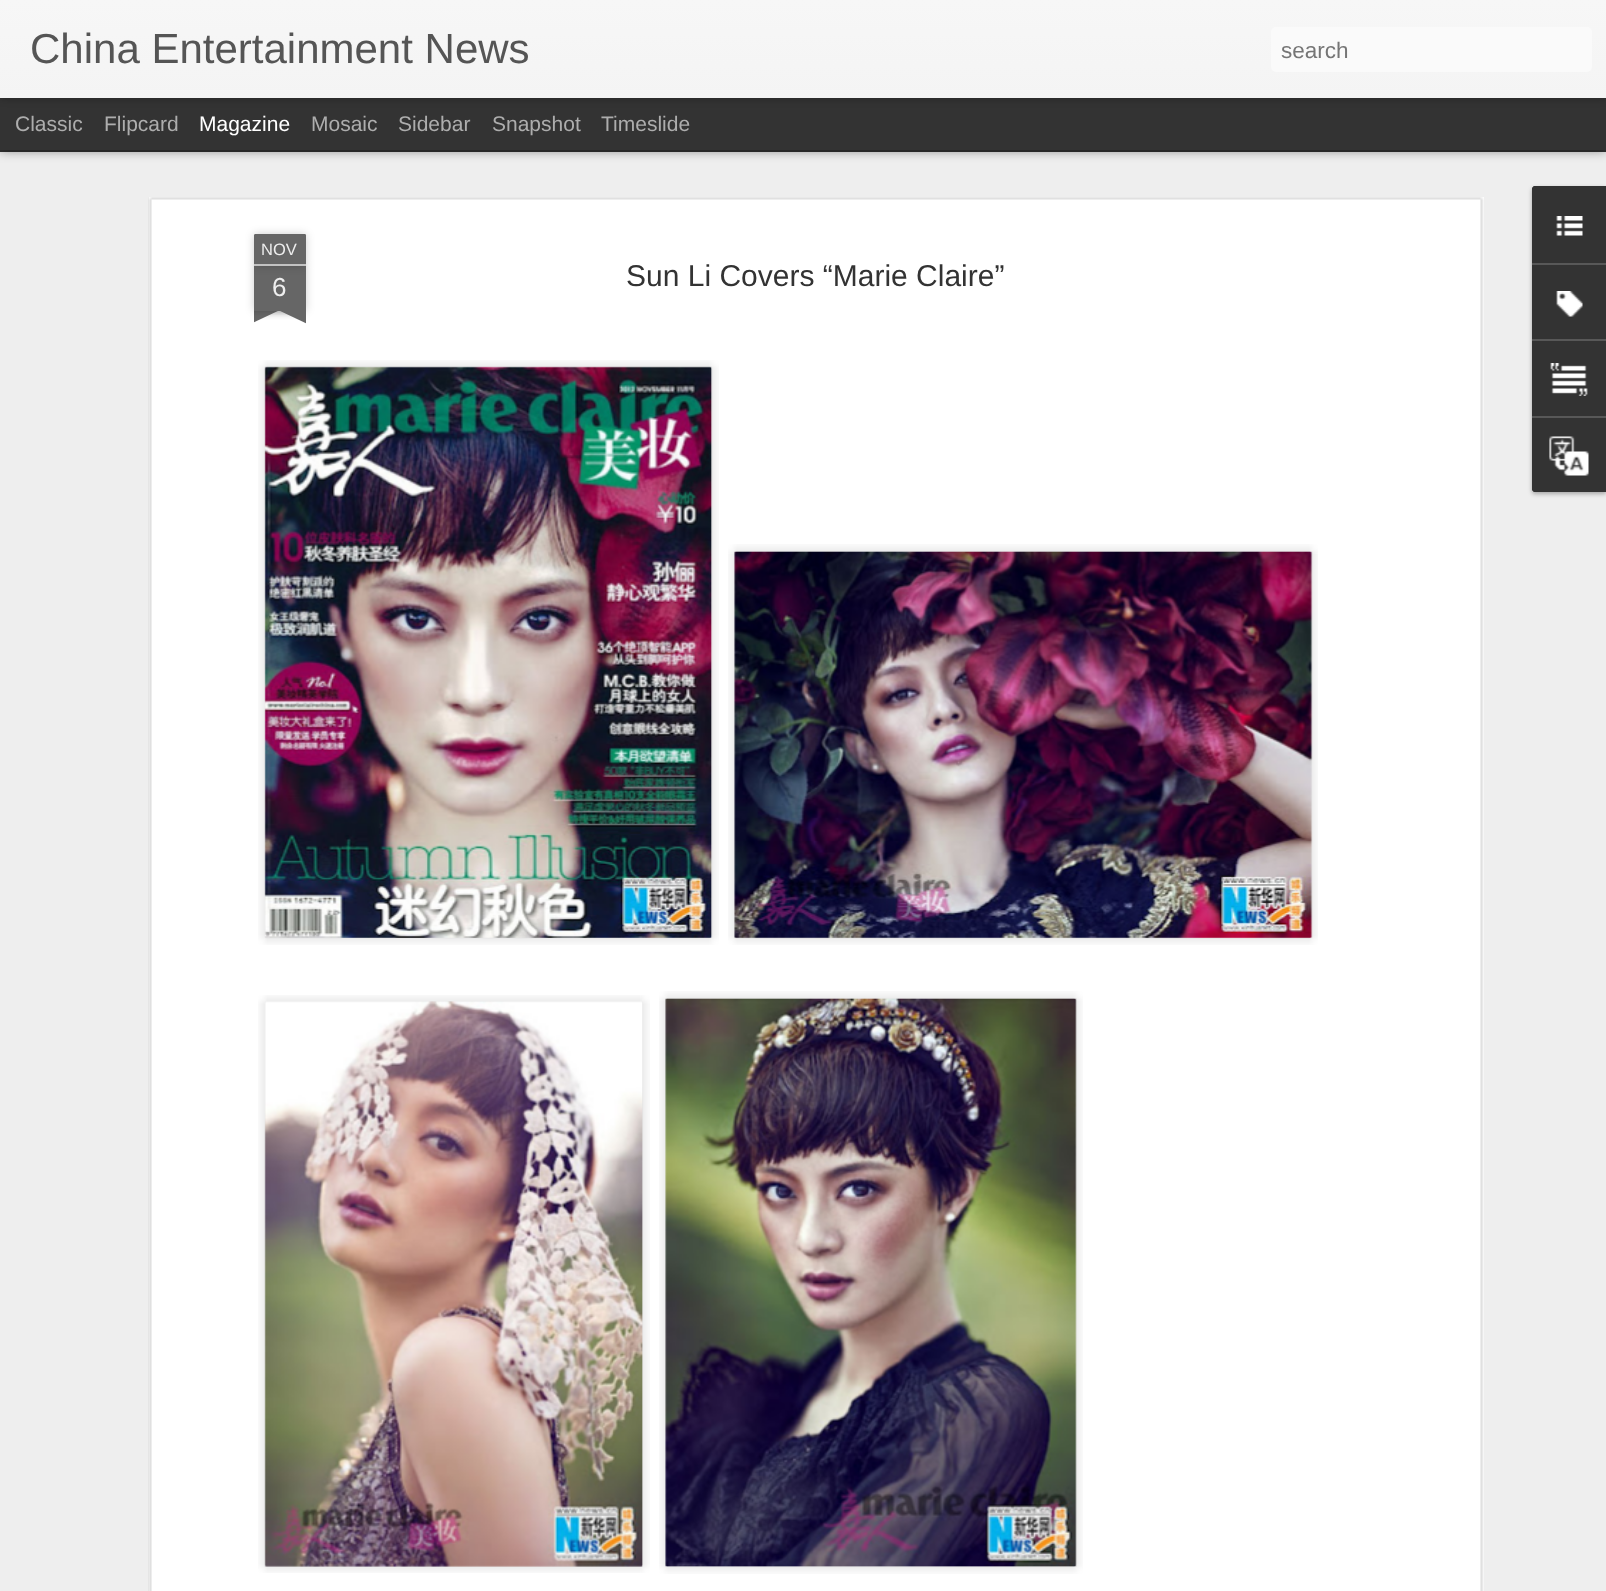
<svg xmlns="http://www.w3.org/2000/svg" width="1606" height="1591">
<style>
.a{font:42px Liberation Sans;fill:#555}
.b{font:22.5px Liberation Sans;fill:#757575}
.c{font:21px Liberation Sans;fill:#adadad}
.d{font:21px Liberation Sans;fill:#fff}
.e{font:16.5px Liberation Sans;fill:#eee}
.f{font:26px Liberation Sans;fill:#eee}
.g{font:30px Liberation Sans;fill:#333}
</style>
<defs>
<linearGradient id="g1" gradientUnits="userSpaceOnUse" x1="0" y1="0" x2="0" y2="98"><stop offset="0" stop-color="#f7f7f7"/><stop offset="1" stop-color="#f4f4f4"/></linearGradient>
<clipPath id="clip1"><path d="M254 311h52v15H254z"/></clipPath>
<clipPath id="clip2"><path d="M254 311h52v15H254z"/></clipPath>
</defs>
<rect width="100%" height="100%" fill="#333"/>
<path fill="#eee" d="M0 152h1606v1439H0z"/>
<path fill="#00000080" filter="blur(6px)" d="M0 98h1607v52H0z"/>
<path fill="#333" d="M0 98h1606v52H0z"/>
<path fill="#0000004d" filter="blur(4px)" d="M0 0h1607v98H0z"/>
<path fill="url(#g1)" d="M0 0h1606v98H0z"/>
<rect fill="#fafafa" x="1271" y="27" width="321" height="45" rx="5"/>
<path fill="#fff" d="M149 197h1335v1394H149z"/>
<image href="1.png" x="148" y="197" width="1336" height="1394"/>
<path fill="#00000033" filter="blur(4px)" d="M254 266h52v45H254z"/>
<path fill="#666" d="M254 266h52v45H254z"/>
<rect fill="#00000033" filter="blur(4px)" x="254" y="234" width="52" height="32" rx="1.5"/>
<path fill="#666" d="M255.5 234h49c1 0 1.5 .5 1.5 1.5v30.5h-52v-30.5c0-1 .5-1.5 1.5-1.5z"/>
<path fill="#c2c2c2" d="M254 264h52v2H254z"/>
<g clip-path="url(#clip1)">
<path fill="#00000033" filter="blur(4px)" d="M240 296h75v15H240z"/>
</g>
<g clip-path="url(#clip2)">
<path fill="#666" d="M240 312l68-32l6 14l-68 32z"/>
</g>
<g clip-path="url(#clip1)">
<path fill="#00000033" filter="blur(4px)" d="M245 296h75v15H245z"/>
</g>
<g clip-path="url(#clip2)">
<path fill="#666" d="M250 280l68 32l-6 14l-68-32z"/>
</g>
<image href="2.png" x="258" y="360" width="461" height="585"/>
<image href="3.png" x="264" y="366" width="449" height="572"/>
<image href="4.png" x="728" y="544" width="590" height="401"/>
<image href="5.png" x="734" y="551" width="579" height="388"/>
<image href="6.png" x="258" y="995" width="392" height="578"/>
<image href="7.png" x="264" y="1001" width="379" height="566"/>
<image href="8.png" x="659" y="991" width="424" height="583"/>
<image href="9.png" x="665" y="998" width="412" height="569"/>
<rect fill="#0000004d" filter="blur(2px)" x="1532" y="188" width="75" height="306" rx="3"/>
<path fill="#333" d="M1535 186h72v306h-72c-1.5 0-3-1.5-3-3v-300c0-1.5 1.5-3 3-3z"/>
<path fill="#333" d="M1535 186h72v77h-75v-74c0-1.5 1.5-3 3-3z"/>
<image href="10.png" x="1556" y="216" width="27" height="20"/>
<path fill="#585858" d="M1532 263h74v2H1532z"/>
<image href="11.png" x="1556" y="291" width="27" height="26"/>
<path fill="#585858" d="M1532 339h74v2H1532z"/>
<image href="12.png" x="1550" y="363" width="38" height="33"/>
<path fill="#333" d="M1532 416h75v76h-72c-1.5 0-3-1.5-3-3z"/>
<path fill="#585858" d="M1532 416h74v2H1532z"/>
<image href="13.png" x="1549" y="436" width="40" height="40"/>
<text class="a" x="30" y="63">China Entertainment News</text>
<text class="b" x="1281" y="58">search</text>
<text class="c" x="15" y="131">Classic</text>
<text class="c" x="104" y="131">Flipcard</text>
<text class="d" x="199" y="131">Magazine</text>
<text class="c" x="311" y="131">Mosaic</text>
<text class="c" x="398" y="131">Sidebar</text>
<text class="c" x="492" y="131">Snapshot</text>
<text class="c" x="601" y="131">Timeslide</text>
<text class="e" x="261" y="255">NOV</text>
<text class="f" x="272" y="296">6</text>
<text class="g" x="626" y="286">Sun Li Covers “Marie Claire”</text>
</svg>
